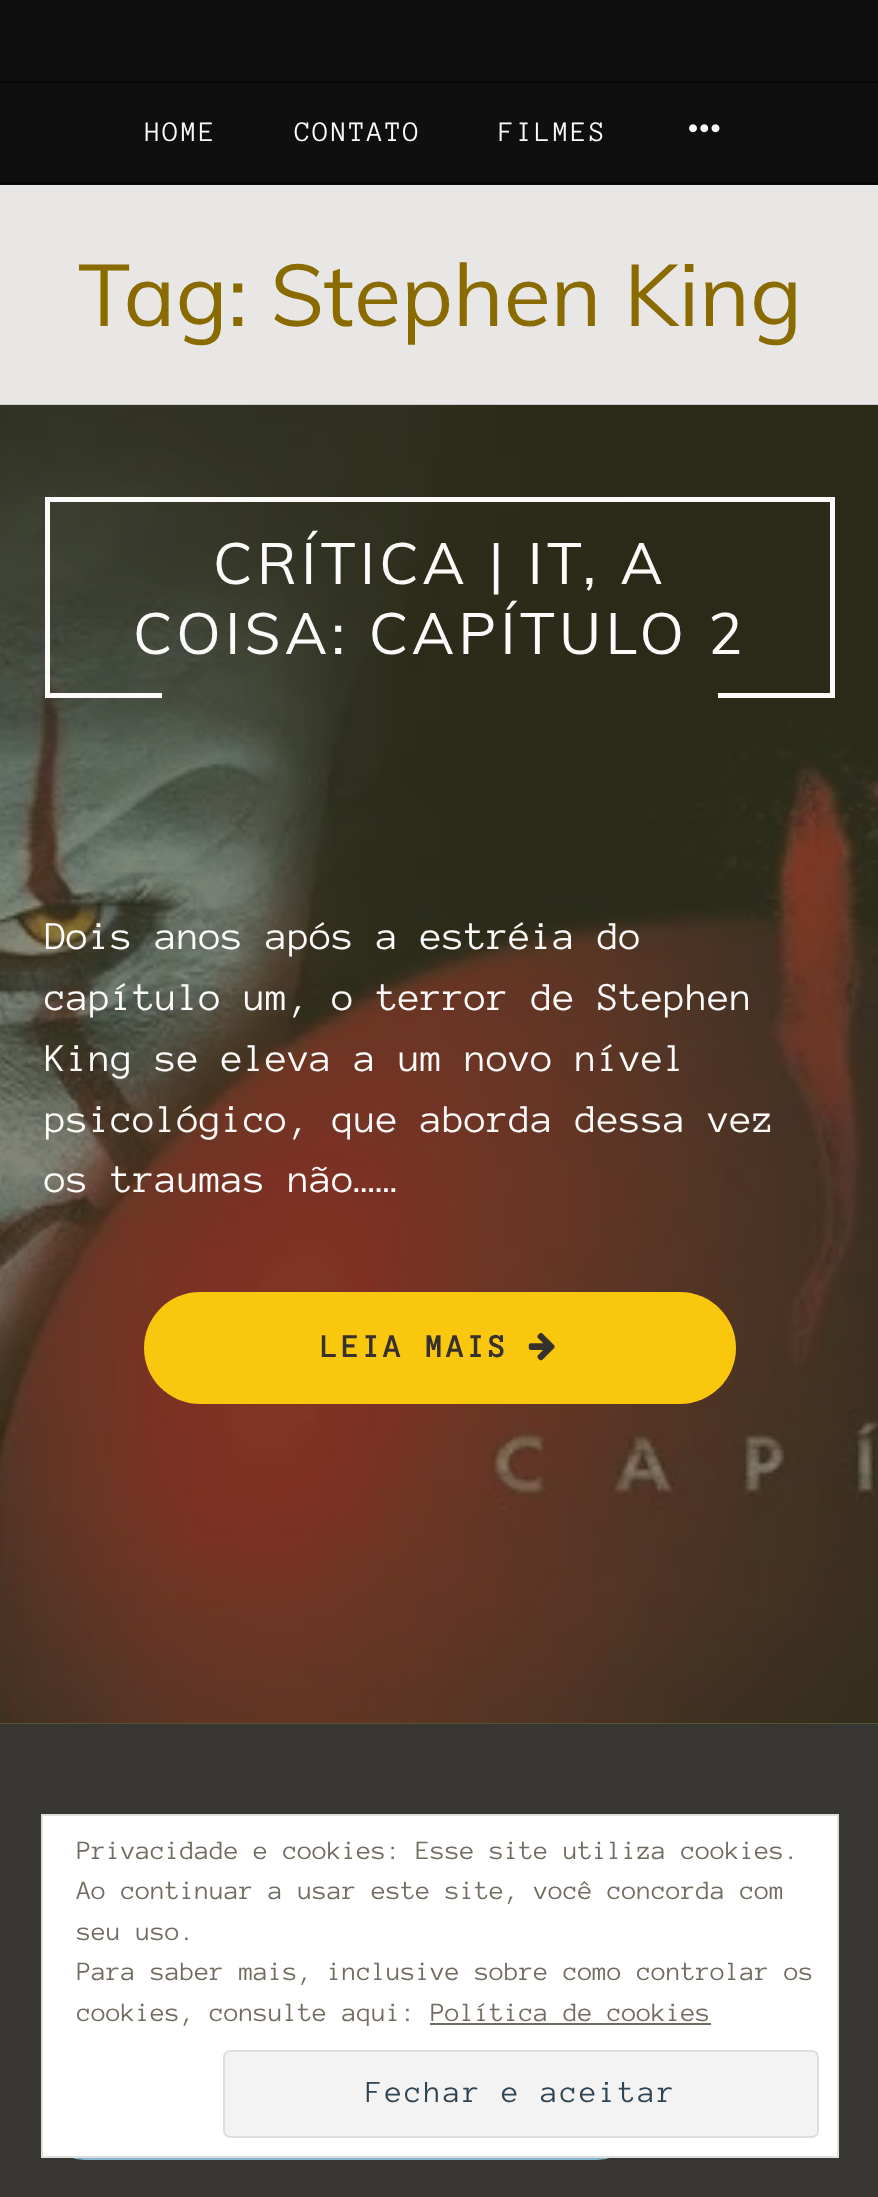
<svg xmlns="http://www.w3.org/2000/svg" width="878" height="2197">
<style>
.a{font:29px Anonymous Pro;letter-spacing:2.25px;fill:#fcfbf9}
.b{font:86.5px Muli;fill:#896b00}
.c{font:57.6px Muli;letter-spacing:4.5px;fill:#fcfbf9}
.d{font:40.5px Anonymous Pro;fill:#fcfbf9}
.e{font:bold 34.25px Anonymous Pro;letter-spacing:2.25px;fill:#38302d}
.f{font:27px Anonymous Pro;fill:#726b60}
.g{font:31.5px Anonymous Pro;letter-spacing:2.25px;fill:#2e4453}
</style>
<rect width="100%" height="100%" fill="#e8e7e5"/>
<path fill="#0f0f0f" d="M0 0h878v185H0z"/>
<path fill="#080808" d="M0 81h878v2H0z"/>
<path fill="#080808" d="M0 182h878v2H0z"/>
<image href="1.png" x="689" y="124" width="31" height="9"/>
<path fill="#545432" d="M0 405h878v1319H0z"/>
<image href="2.png" x="0" y="404" width="878" height="1319"/>
<path fill="#fcfbf9" d="M45 497h790v5H45z"/>
<path fill="#fcfbf9" d="M830 497h5v201H830z"/>
<path fill="#fcfbf9" d="M45 497h5v201H45z"/>
<path fill="#fcfbf9" d="M50 693h112v5H50z"/>
<path fill="#fcfbf9" d="M718 693h112v5H718z"/>
<rect fill="#fac70f" x="144" y="1292" width="592" height="112" rx="56"/>
<image href="3.png" x="528" y="1333" width="27" height="28"/>
<path fill="#383633" d="M0 1724h878v473H0z"/>
<rect fill="#83b6cc" x="45" y="2081" width="592" height="79" rx="39.5"/>
<path fill="#fff" stroke="#dedede" stroke-width="2" d="M42 1815h796v342H42z"/>
<path fill="#726b60" d="M430 2023h281v2H430z"/>
<rect fill="#f3f3f3" stroke="#dedede" stroke-width="2" x="224" y="2051" width="594" height="86" rx="6"/>
<text class="a" x="145" y="141">HOME</text>
<text class="a" x="295" y="141">CONTATO</text>
<text class="a" x="499" y="141">FILMES</text>
<text class="b" x="78" y="326">Tag: Stephen King</text>
<text class="c" x="213" y="584">CRÍTICA | IT, A</text>
<text class="c" x="133" y="654">COISA: CAPÍTULO 2</text>
<text class="d" x="45" y="949">Dois anos após a estréia do</text>
<text class="d" x="45" y="1010">capítulo um, o terror de Stephen</text>
<text class="d" x="45" y="1071">King se eleva a um novo nível</text>
<text class="d" x="45" y="1132">psicológico, que aborda dessa vez</text>
<text class="d" x="45" y="1192">os traumas não……</text>
<text class="e" x="321" y="1357">LEIA MAIS</text>
<text class="f" x="77" y="1859">Privacidade e cookies: Esse site utiliza cookies.</text>
<text class="f" x="77" y="1899">Ao continuar a usar este site, você concorda com</text>
<text class="f" x="77" y="1940">seu uso.</text>
<text class="f" x="77" y="1980">Para saber mais, inclusive sobre como controlar os</text>
<text class="f" x="77" y="2021">cookies, consulte aqui: Política de cookies</text>
<text class="g" x="366" y="2102">Fechar e aceitar</text>
</svg>
